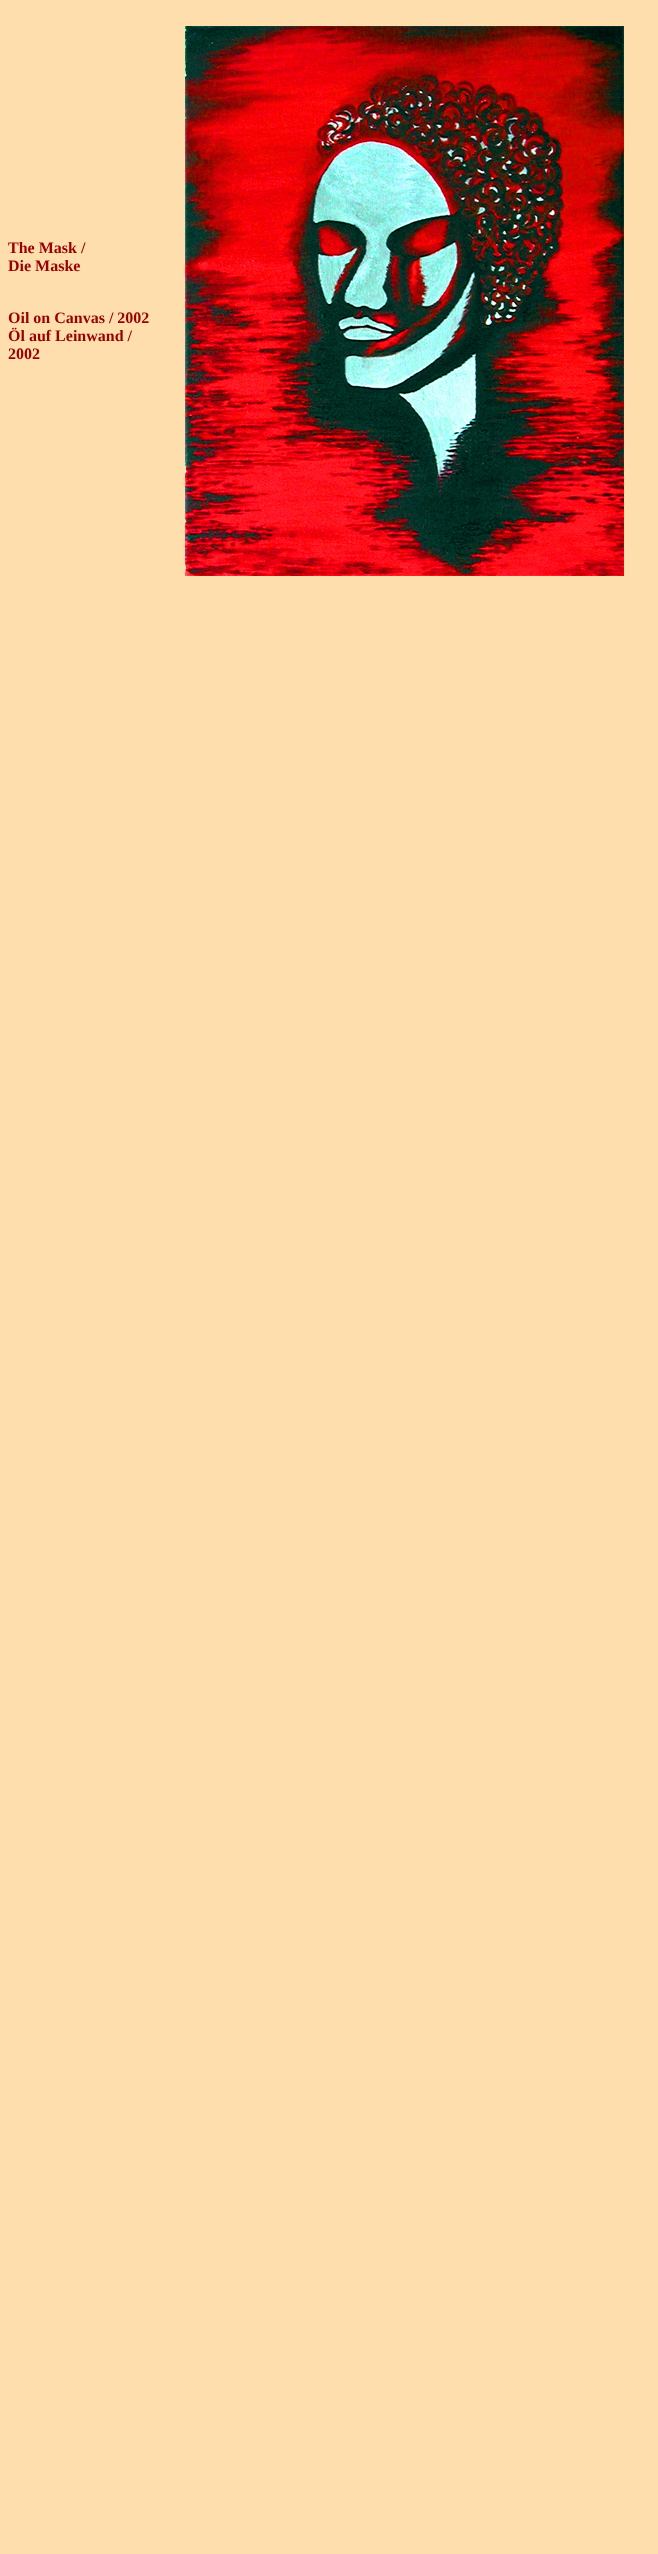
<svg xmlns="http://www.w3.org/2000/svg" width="658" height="2554">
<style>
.a{font:bold 16px Liberation Serif;fill:#900}
</style>
<rect width="100%" height="100%" fill="#ffdead"/>
<image href="1.png" x="185" y="26" width="439" height="550"/>
<text class="a" x="8" y="253">The Mask /</text>
<text class="a" x="8" y="271">Die Maske</text>
<text class="a" x="8" y="323">Oil on Canvas / 2002</text>
<text class="a" x="8" y="341">Öl auf Leinwand /</text>
<text class="a" x="8" y="359">2002</text>
</svg>
